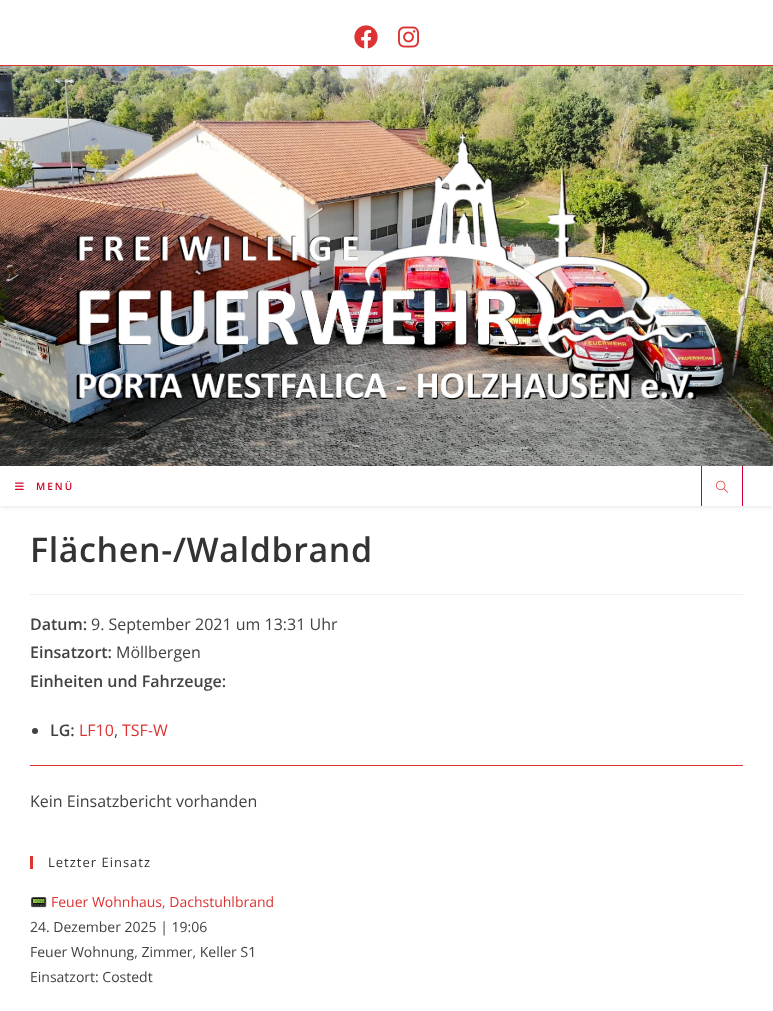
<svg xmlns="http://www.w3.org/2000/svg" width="773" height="1011">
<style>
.a{font:600 10px Open Sans;letter-spacing:2px;fill:#d10028}
.b{font:600 34px Open Sans;letter-spacing:0.6px;fill:#333}
.c{font:600 16px Open Sans;fill:#424242}
.d{font:16px Open Sans;fill:#424242}
.e{font:16px Open Sans;fill:#d33}
.f{font:13px Open Sans;letter-spacing:1px;fill:#333}
.g{font:14px Noto Color Emoji;fill:#d33}
.h{font:14px Open Sans;fill:#d33}
.i{font:14px Open Sans;fill:#424242}
</style>
<rect width="100%" height="100%" fill="#fff"/>
<path fill="#d33" d="M0 65h773v1H0z"/>
<image href="1.png" x="354" y="25" width="24" height="24"/>
<image href="2.png" x="398" y="26" width="21" height="22"/>
<image href="3.png" x="0" y="66" width="773" height="400"/>
<image href="4.png" x="76" y="132" width="621" height="268"/>
<path fill="#0000001a" filter="blur(2.5px)" d="M0 467h773v40H0z"/>
<path fill="#fff" d="M0 466h773v40H0z"/>
<image href="5.png" x="15" y="482" width="9" height="8"/>
<path fill="#d10028" d="M742 466h1v40H742z"/>
<path fill="#d10028" d="M701 466h1v40H701z"/>
<image href="6.png" x="716" y="480" width="12" height="13"/>
<path fill="#f1f1f1" d="M30 594h713v1H30z"/>
<circle fill="#424242" cx="35" cy="731" r="3"/>
<path fill="#d33" d="M30 765h713v1H30z"/>
<path fill="#d33" d="M30 856h3v13H30z"/>
<text class="a" x="36" y="490">MENÜ</text>
<text class="b" x="30" y="562">Flächen-/Waldbrand</text>
<text class="c" x="30" y="630">Datum:</text>
<text class="d" x="91" y="630">9. September 2021 um 13:31 Uhr</text>
<text class="c" x="30" y="658">Einsatzort:</text>
<text class="d" x="116" y="658">Möllbergen</text>
<text class="c" x="30" y="687">Einheiten und Fahrzeuge:</text>
<text class="c" x="50" y="736">LG:</text>
<text class="e" x="79" y="736">LF10</text>
<text class="e" x="122" y="736">TSF-W</text>
<text class="d" x="114" y="736">,</text>
<text class="d" x="30" y="807">Kein Einsatzbericht vorhanden</text>
<text class="f" x="48" y="867">Letzter Einsatz</text>
<text class="g" x="30" y="907">📟</text>
<text class="h" x="51" y="907">Feuer Wohnhaus, Dachstuhlbrand</text>
<text class="i" x="30" y="932">24. Dezember 2025 | 19:06</text>
<text class="i" x="30" y="957">Feuer Wohnung, Zimmer, Keller S1</text>
<text class="i" x="30" y="982">Einsatzort: Costedt</text>
</svg>
